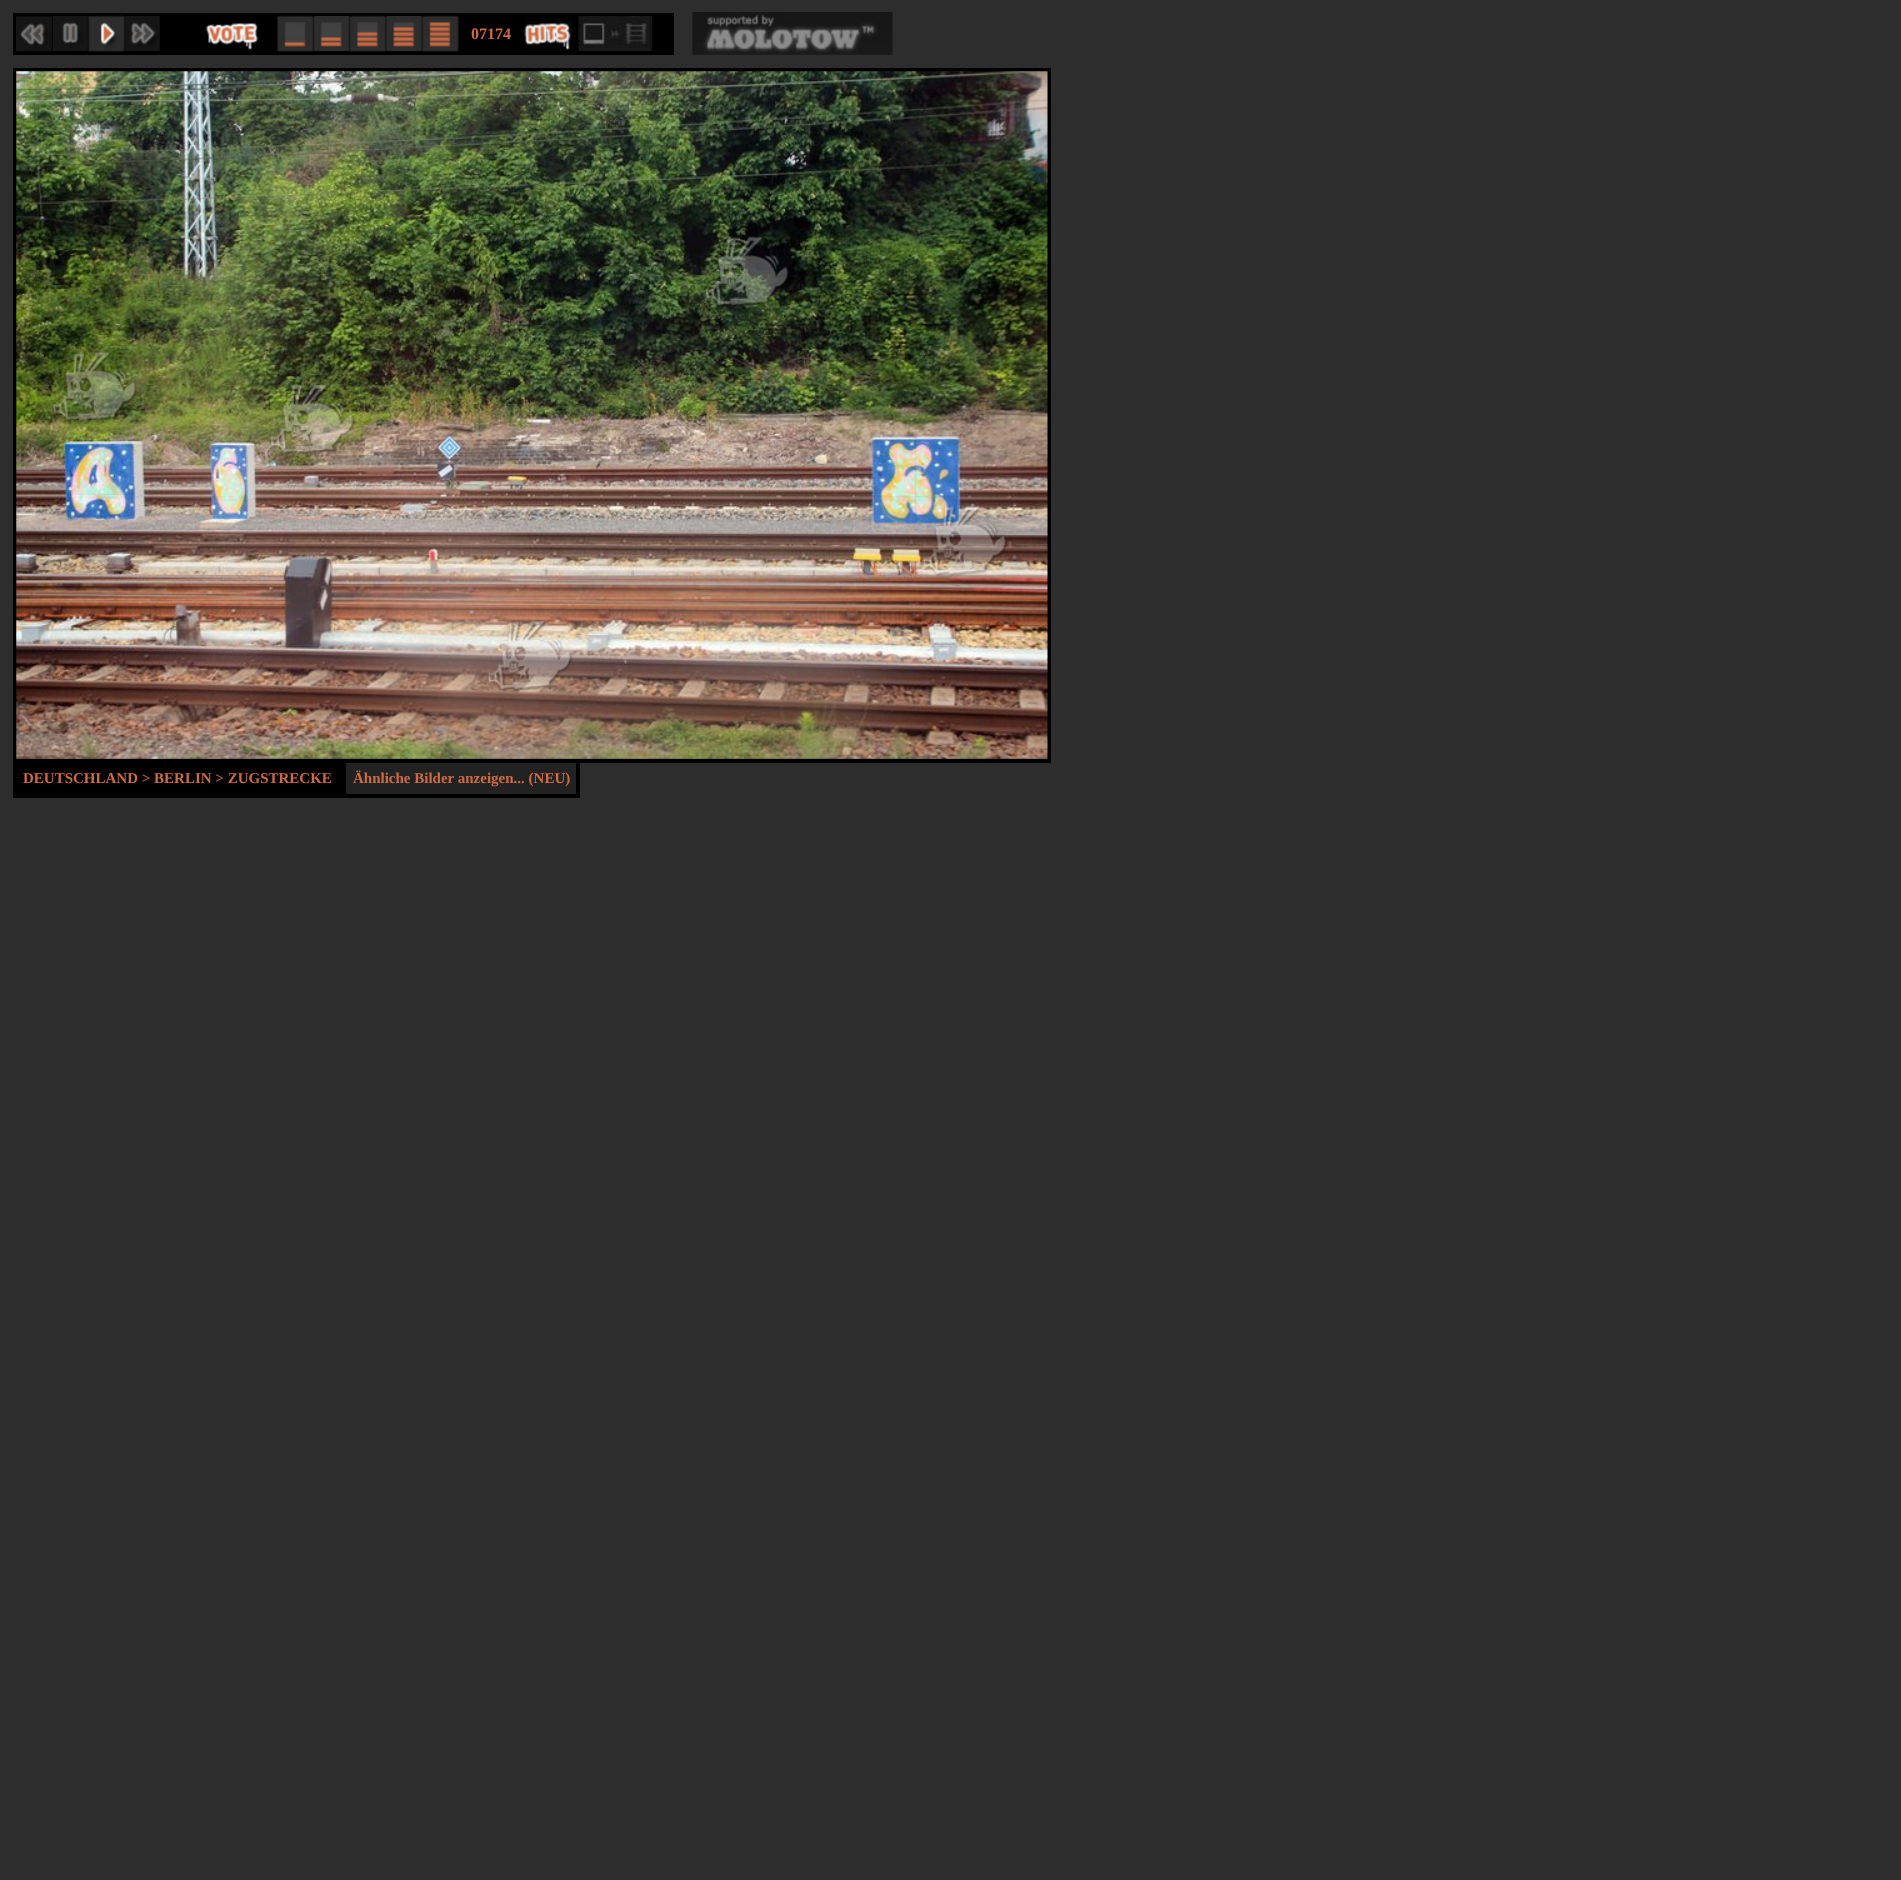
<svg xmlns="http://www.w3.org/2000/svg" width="1901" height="1880">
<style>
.a{font:bold 16px Liberation Serif;fill:#cf6b44}
.b{font:bold 15px Liberation Serif;fill:#cf6b44}
</style>
<rect width="100%" height="100%" fill="#2d2d2d"/>
<path fill="#000" d="M13 13h661v42H13z"/>
<image href="1.png" x="16" y="16" width="37" height="36"/>
<image href="2.png" x="53" y="16" width="36" height="35"/>
<image href="3.png" x="88" y="15" width="38" height="37"/>
<image href="4.png" x="125" y="16" width="36" height="35"/>
<image href="5.png" x="277" y="15" width="37" height="37"/>
<image href="6.png" x="313" y="16" width="38" height="35"/>
<image href="7.png" x="349" y="15" width="38" height="37"/>
<image href="8.png" x="386" y="16" width="37" height="35"/>
<image href="9.png" x="422" y="15" width="37" height="37"/>
<image href="10.png" x="524" y="16" width="51" height="34"/>
<image href="11.png" x="578" y="16" width="74" height="35"/>
<path fill="#010101" d="M160 17h1v33H160z"/>
<image href="12.png" x="205" y="23" width="54" height="27"/>
<image href="13.png" x="692" y="12" width="201" height="43"/>
<path fill="none" stroke="#000" stroke-width="4" d="M15 70h1034v691H15z"/>
<image href="14.png" x="16" y="71" width="1032" height="688"/>
<path fill="#000" d="M13 763h567v35H13z"/>
<path fill="#222" d="M346 763h230v31H346z"/>
<text class="a" x="471" y="39">07174</text>
<text class="b" x="23" y="783">DEUTSCHLAND &gt; BERLIN &gt; ZUGSTRECKE</text>
<text class="b" x="353" y="783">Ähnliche Bilder anzeigen... (NEU)</text>
</svg>
